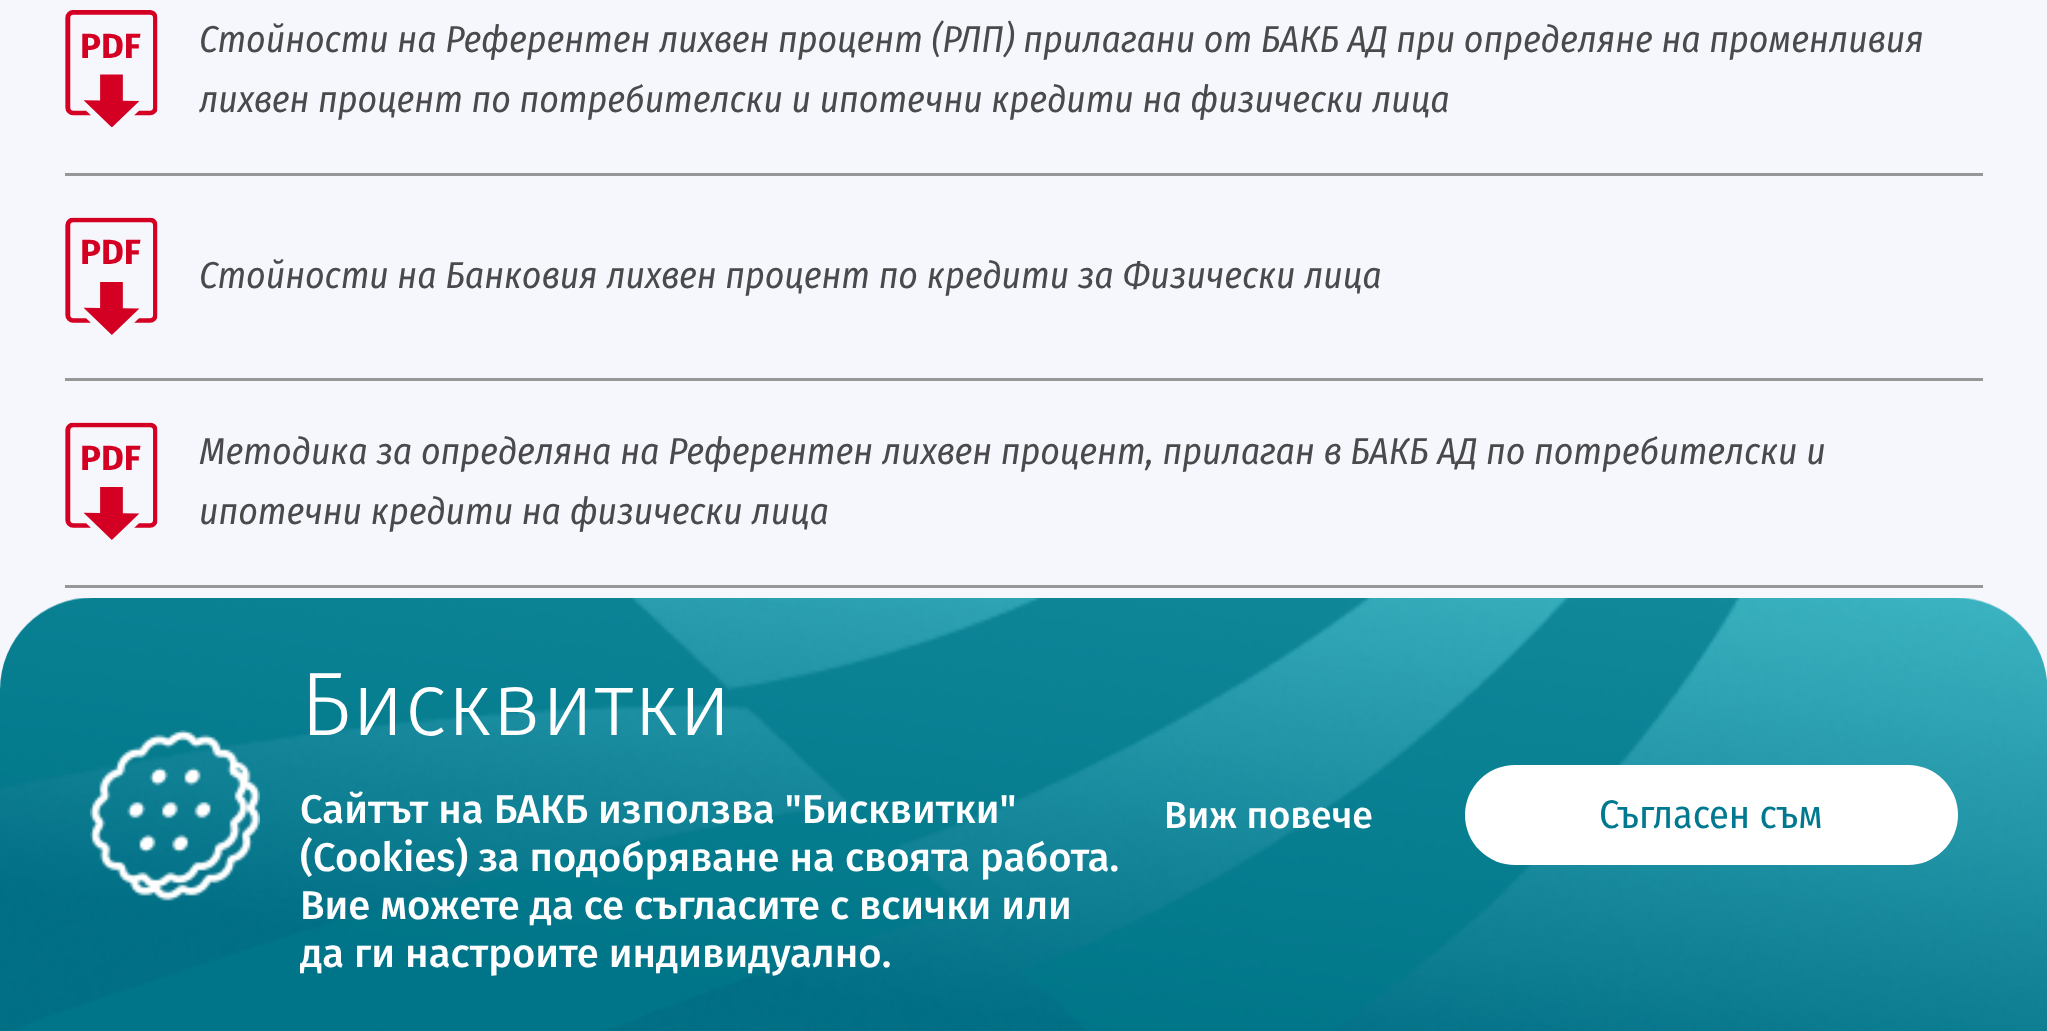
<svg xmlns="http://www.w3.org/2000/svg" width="2047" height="1031">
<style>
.a{font:bold 35px Fira Sans;fill:#d40023}
.b{font:italic 37.5px Fira Sans Condensed;fill:#4a4a4c}
.c{font:300 90px Fira Sans;fill:#fff}
.d{font:500 40px Fira Sans;fill:#fff}
.e{font:500 37.5px Fira Sans;fill:#fff}
.f{font:40px Fira Sans Condensed;fill:#007990}
</style>
<rect width="100%" height="100%" fill="#f5f7fc"/>
<path fill="#979797" d="M65 173h1918v3H65z"/>
<image href="1.png" x="65" y="10" width="93" height="118"/>
<path fill="#979797" d="M65 378h1918v3H65z"/>
<image href="2.png" x="65" y="217" width="93" height="118"/>
<path fill="#979797" d="M65 585h1918v3H65z"/>
<image href="3.png" x="65" y="422" width="93" height="118"/>
<image href="4.png" x="0" y="598" width="2047" height="433"/>
<image href="5.png" x="90" y="730" width="170" height="171"/>
<rect fill="#fff" x="1465" y="765" width="493" height="100" rx="50"/>
<text class="a" x="80" y="58">PDF</text>
<text class="b" x="199" y="52">Стойности на Референтен лихвен процент (РЛП) прилагани от БАКБ АД при определяне на променливия</text>
<text class="b" x="199" y="112">лихвен процент по потребителски и ипотечни кредити на физически лица</text>
<text class="a" x="80" y="264">PDF</text>
<text class="b" x="199" y="288">Стойности на Банковия лихвен процент по кредити за Физически лица</text>
<text class="a" x="80" y="470">PDF</text>
<text class="b" x="199" y="464">Методика за определяна на Референтен лихвен процент, прилаган в БАКБ АД по потребителски и</text>
<text class="b" x="199" y="524">ипотечни кредити на физически лица</text>
<text class="c" x="300" y="735">Бисквитки</text>
<text class="d" x="300" y="823">Сайтът на БАКБ използва "Бисквитки"</text>
<text class="d" x="300" y="871">(Cookies) за подобряване на своята работа.</text>
<text class="d" x="300" y="919">Вие можете да се съгласите с всички или</text>
<text class="d" x="300" y="967">да ги настроите индивидуално.</text>
<text class="e" x="1164" y="828">Виж повече</text>
<text class="f" x="1599" y="828">Съгласен съм</text>
</svg>
